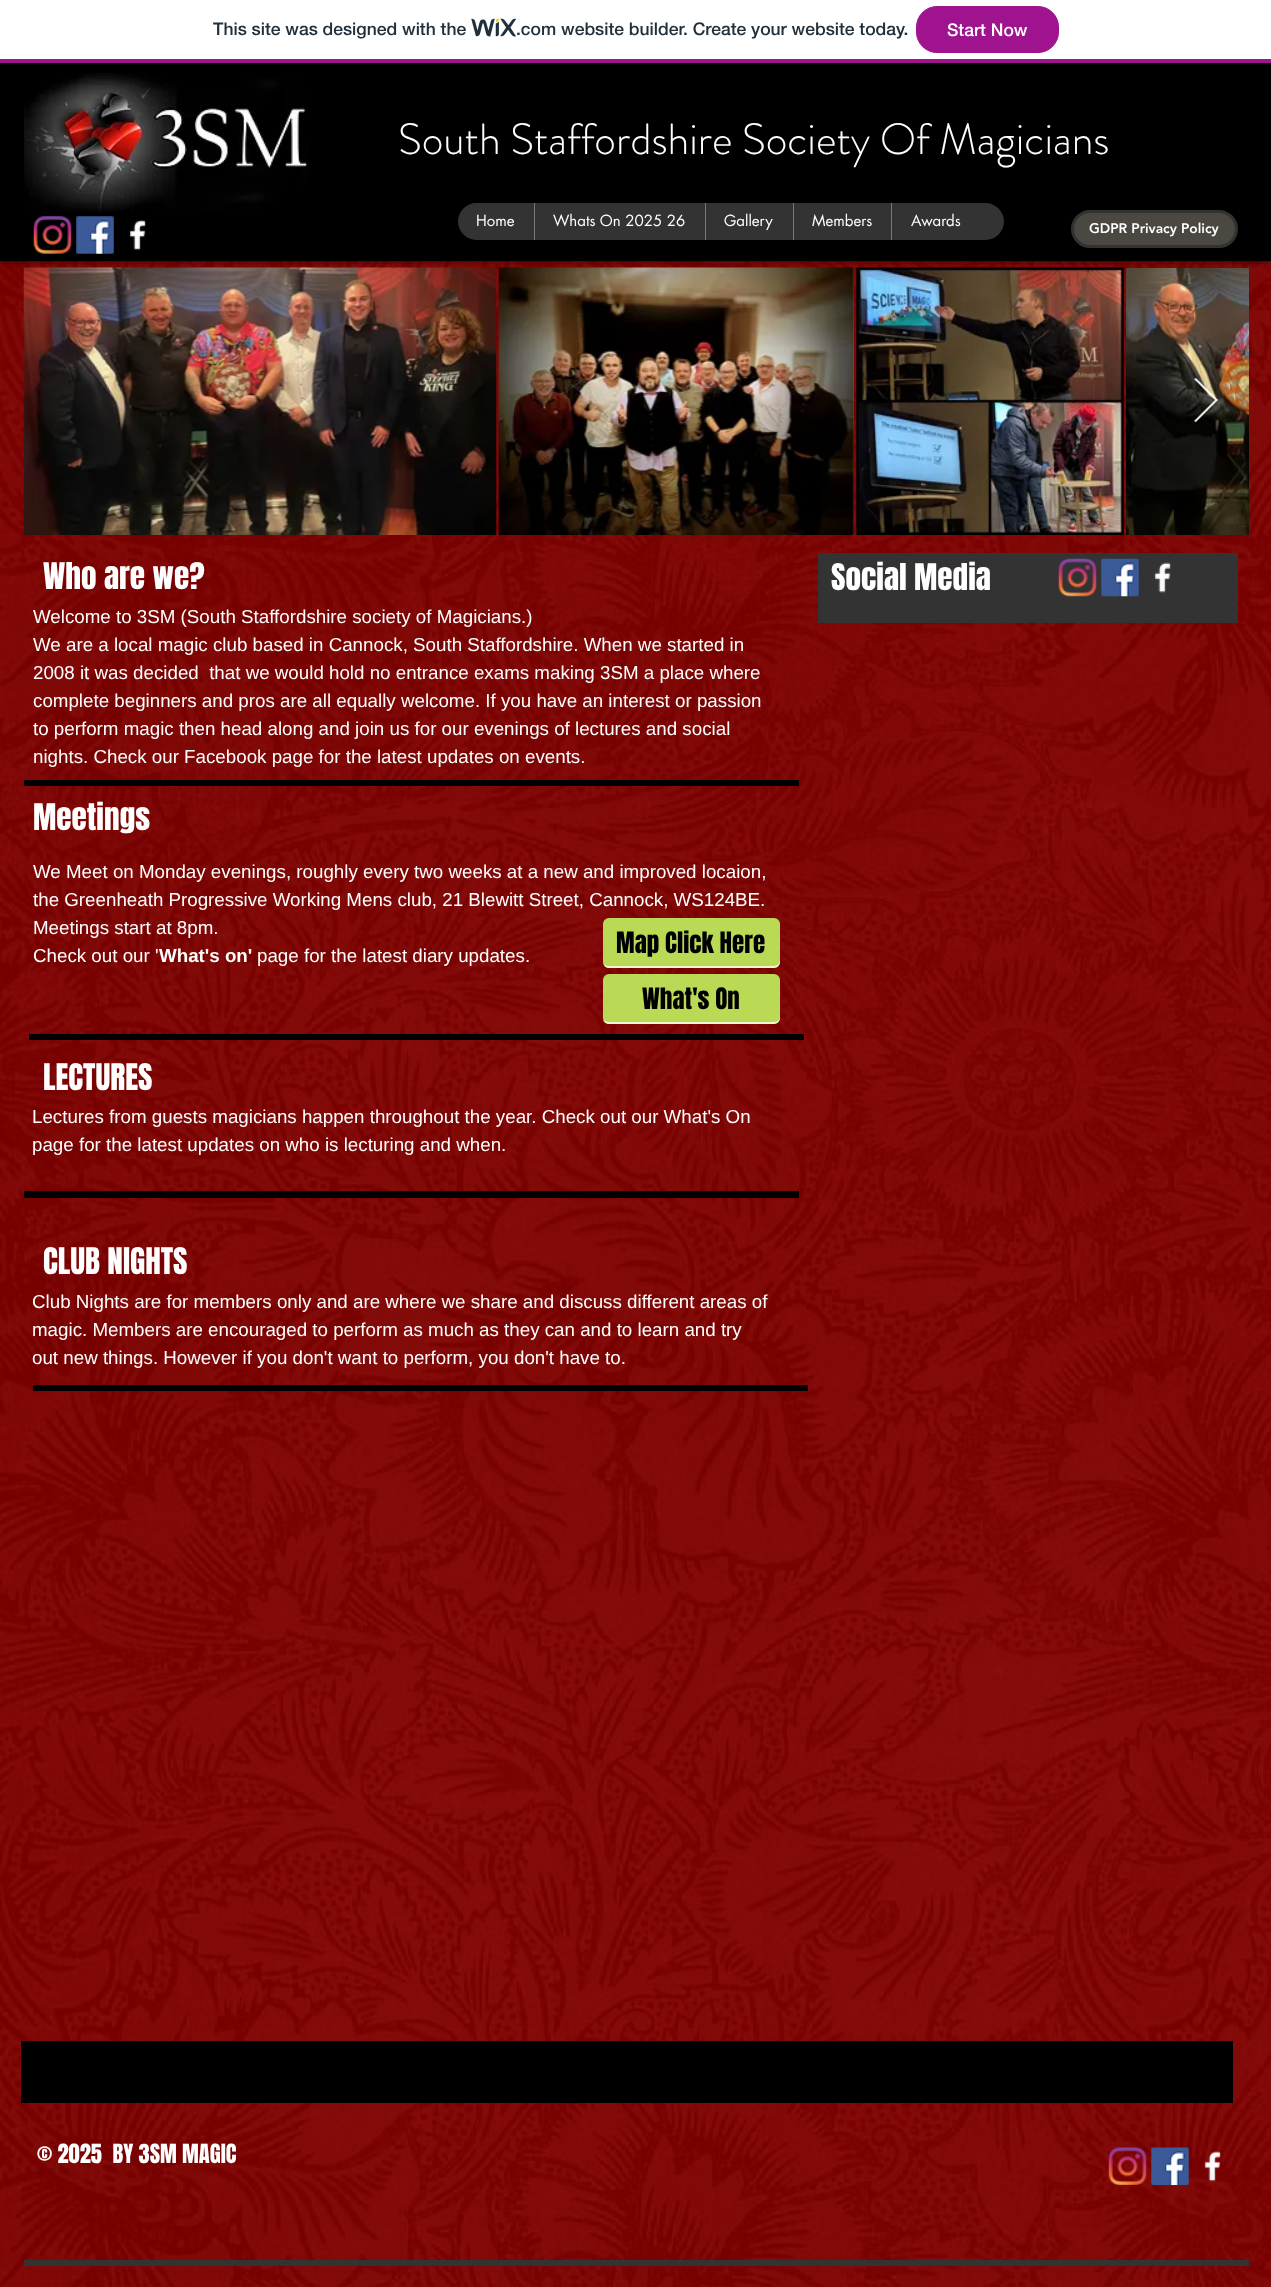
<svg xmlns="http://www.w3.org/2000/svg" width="1271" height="2287">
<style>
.a{font:500 17.5px 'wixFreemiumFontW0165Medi';fill:#20303c}
.b{font:500 17.5px 'wixFreemiumFontW0165Medi';fill:#fff}
.c{font:300 43.75px 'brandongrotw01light';fill:#fff}
.d{font:15px futura;fill:#fff}
.e{font:900 13.75px 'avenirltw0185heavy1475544';fill:#fff}
.f{font:31.25px Anton;fill:#fff}
.g{font:18.75px Liberation Sans;fill:#fff}
.h{font:bold 18.75px Liberation Sans;fill:#fff}
.i{font:25px Anton;fill:#000}
.j{font:22.5px Anton;fill:#fff}
</style>
<rect width="100%" height="100%" fill="#8b0000"/>
<image href="16.png" x="0" y="261" width="1271" height="2026"/>
<path fill="#000000b3" filter="blur(3px)" d="M0 63h1271v198H0z"/>
<path fill="#fff" d="M0 0h1271v59H0z"/>
<path fill="#a0138e" d="M0 59h1271v4H0z"/>
<image href="1.png" x="471" y="18" width="45" height="19"/>
<rect fill="#a0138e" stroke="#a0138e" x="916.5" y="6.5" width="142" height="46" rx="20.5"/>
<path fill="#000" d="M0 63h1271v198H0z"/>
<image href="2.png" x="24" y="73" width="285" height="139"/>
<image href="3.png" x="33" y="216" width="39" height="38"/>
<image href="4.png" x="76" y="216" width="38" height="38"/>
<image href="5.png" x="129" y="220" width="17" height="31"/>
<rect fill="#333" x="458" y="203" width="546" height="37" rx="18.5"/>
<path fill="#797979" d="M534 203h1v37H534z"/>
<path fill="#797979" d="M705 203h1v37H705z"/>
<path fill="#797979" d="M793 203h1v37H793z"/>
<path fill="#797979" d="M891 203h1v37H891z"/>
<rect fill="#4a4841" stroke="#323232" stroke-width="3" x="1072.5" y="211.5" width="164" height="35" rx="17.5"/>
<image href="6.png" x="23" y="267" width="474" height="268"/>
<path fill="#666" d="M852 268h2v267H852z"/>
<image href="7.png" x="498" y="267" width="356" height="268"/>
<image href="8.png" x="856" y="267" width="268" height="268"/>
<image href="9.png" x="1126" y="268" width="123" height="267"/>
<path fill="#ffffffe6" d="M1194 379l2-1l22 22l-22 22l-2-1l21-21z"/>
<path fill="#333" d="M818 553h420v70H818z"/>
<image href="10.png" x="1058" y="558" width="39" height="39"/>
<image href="11.png" x="1101" y="558" width="38" height="39"/>
<image href="12.png" x="1154" y="562" width="17" height="31"/>
<path fill="#000" d="M24 780h775v6H24z"/>
<rect fill="#bada55" x="603" y="918" width="177" height="50" rx="6"/>
<path fill="#ffffffbf" d="M603 963c1 3 3 5 6 5h165c3 0 6-3 6-6v-2c0 3-3 6-6 6h-165c-3 0-5-1-6-3z"/>
<rect fill="#bada55" x="603" y="974" width="177" height="50" rx="6"/>
<path fill="#ffffffbf" d="M603 1020c1 2 3 4 6 4h165c3 0 6-3 6-6v-2c0 4-3 6-6 6h-165c-2 0-4-1-6-2z"/>
<path fill="#000" d="M29 1034h775v6H29z"/>
<path fill="#000" d="M24 1191h775v7H24z"/>
<path fill="#000" d="M33 1385h775v6H33z"/>
<path fill="#000" d="M21 2041h1212v62H21z"/>
<image href="13.png" x="1108" y="2147" width="39" height="38"/>
<image href="14.png" x="1151" y="2147" width="38" height="38"/>
<image href="15.png" x="1204" y="2151" width="17" height="31"/>
<path fill="#333" d="M24 2260h1225v6H24z"/>
<text class="a" x="213" y="35">This site was designed with the</text>
<text class="a" x="516" y="35">.com website builder. Create your website today.</text>
<text class="b" x="947" y="36">Start Now</text>
<text class="c" x="398" y="154">South Staffordshire Society Of Magicians</text>
<text class="d" x="476" y="226">Home</text>
<text class="d" x="553" y="226">Whats On 2025 26</text>
<text class="d" x="724" y="226">Gallery</text>
<text class="d" x="812" y="226">Members</text>
<text class="d" x="911" y="226">Awards</text>
<text class="e" x="1089" y="233">GDPR Privacy Policy</text>
<text class="f" x="43" y="589">Who are we?</text>
<text class="f" x="831" y="590">Social Media</text>
<text class="g" x="33" y="623">Welcome to 3SM (South Staffordshire society of Magicians.)</text>
<text class="g" x="33" y="651">We are a local magic club based in Cannock, South Staffordshire. When we started in</text>
<text class="g" xml:space="preserve" x="33" y="679">2008 it was decided  that we would hold no entrance exams making 3SM a place where</text>
<text class="g" x="33" y="707">complete beginners and pros are all equally welcome. If you have an interest or passion</text>
<text class="g" x="33" y="735">to perform magic then head along and join us for our evenings of lectures and social</text>
<text class="g" x="33" y="763">nights. Check our Facebook page for the latest updates on events.</text>
<text class="f" x="33" y="830">Meetings</text>
<text class="g" x="33" y="878">We Meet on Monday evenings, roughly every two weeks at a new and improved locaion,</text>
<text class="g" x="33" y="906">the Greenheath Progressive Working Mens club, 21 Blewitt Street, Cannock, WS124BE.</text>
<text class="g" x="33" y="934">Meetings start at 8pm.</text>
<text class="g" x="33" y="962">Check out our '</text>
<text class="h" x="159" y="962">What's on'</text>
<text class="g" x="257" y="962">page for the latest diary updates.</text>
<text class="i" x="616" y="953">Map Click Here</text>
<text class="i" x="642" y="1009">What's On</text>
<text class="f" x="43" y="1090">LECTURES</text>
<text class="g" x="32" y="1123">Lectures from guests magicians happen throughout the year. Check out our What's On</text>
<text class="g" x="32" y="1151">page for the latest updates on who is lecturing and when.</text>
<text class="f" x="43" y="1274">CLUB NIGHTS</text>
<text class="g" x="32" y="1308">Club Nights are for members only and are where we share and discuss different areas of</text>
<text class="g" x="32" y="1336">magic. Members are encouraged to perform as much as they can and to learn and try</text>
<text class="g" x="32" y="1364">out new things. However if you don't want to perform, you don't have to.</text>
<text class="j" xml:space="preserve" x="37" y="2163">© 2025  BY 3SM MAGIC</text>
</svg>
